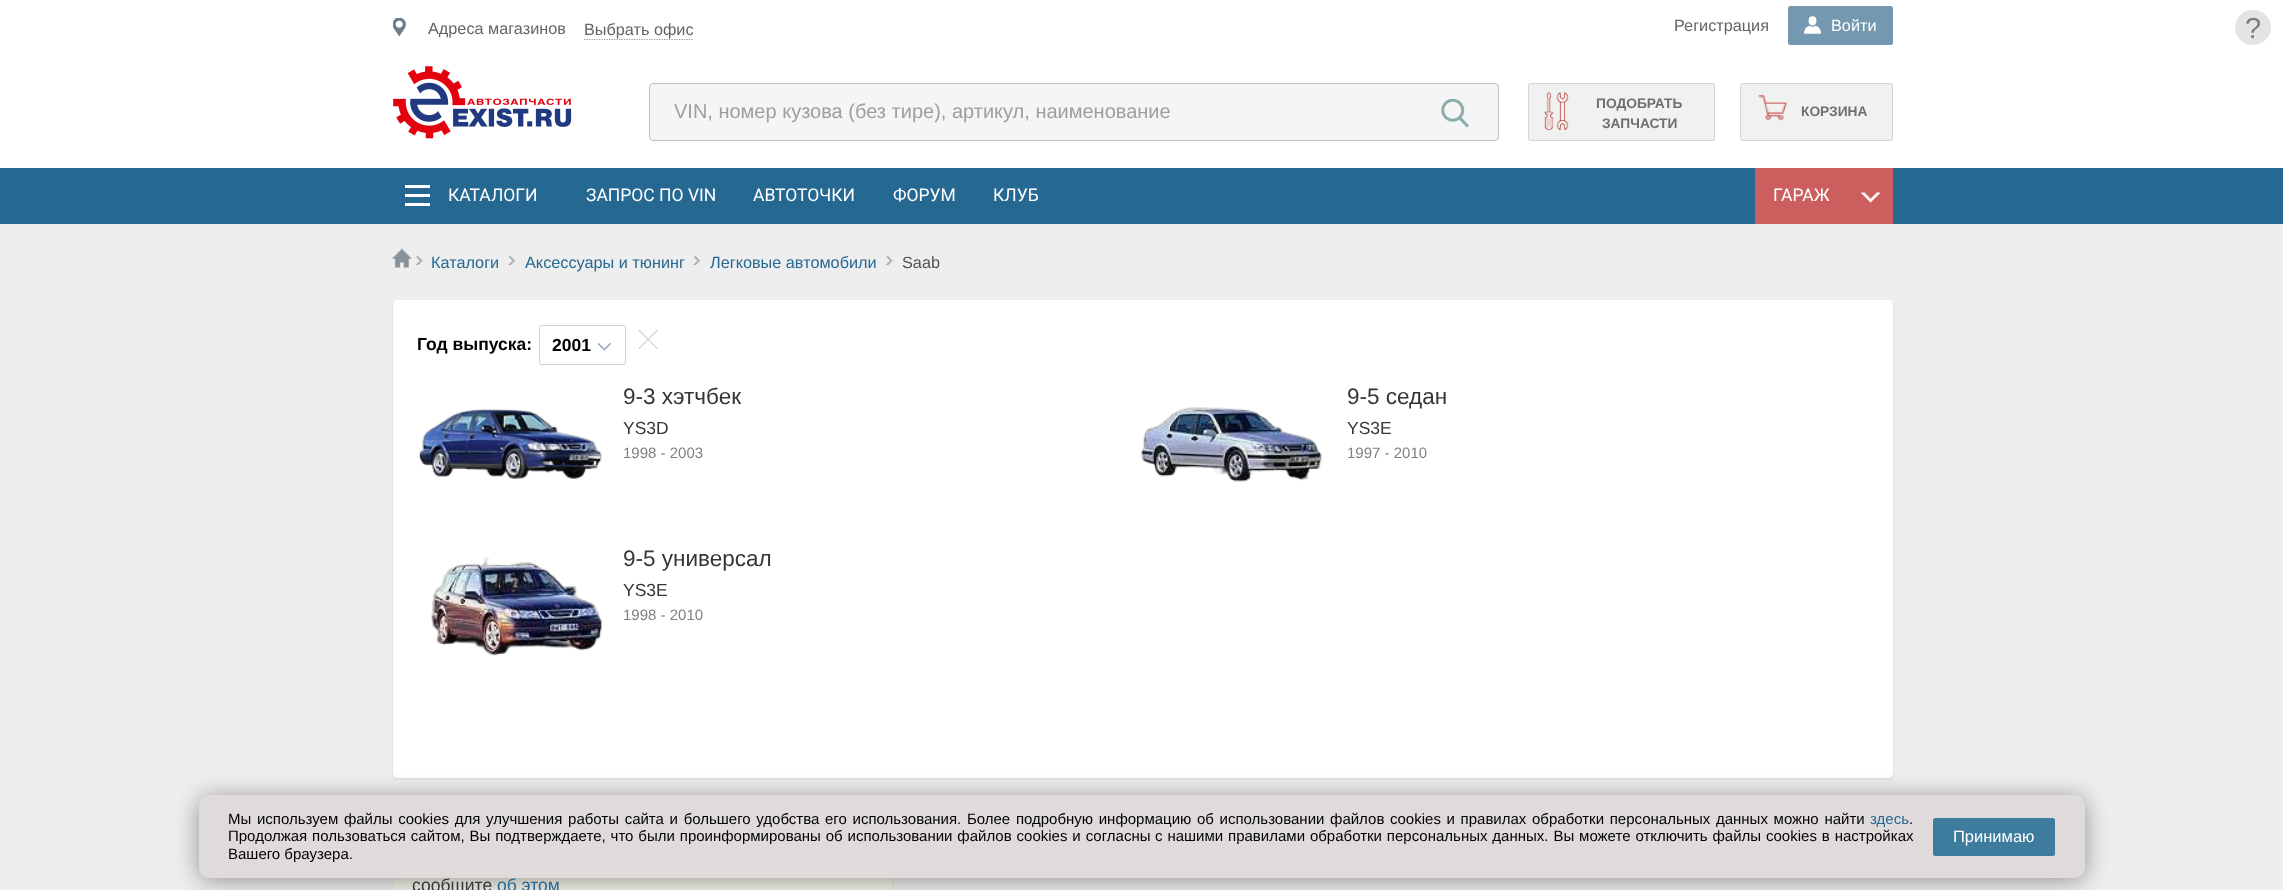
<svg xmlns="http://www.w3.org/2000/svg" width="2283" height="890">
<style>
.a{font:16.25px Liberation Sans;fill:#646464}
.b{font:16.25px Liberation Sans;fill:#fff}
.c{font:20px Liberation Sans;fill:#9e9e9e}
.d{font:bold 13.75px Liberation Sans;fill:#6f6f6f}
.e{font:17.5px Roboto;fill:#fff}
.f{font:29px Liberation Sans;fill:#767d80}
.g{font:16.25px Liberation Sans;fill:#256892}
.h{font:16.25px Liberation Sans;fill:#525252}
.i{font:bold 17.5px Liberation Sans;fill:#000}
.j{font:22.5px Liberation Sans;fill:#363636}
.k{font:17.5px Liberation Sans;fill:#363636}
.l{font:15px Liberation Sans;fill:#808080}
.m{font:17.5px Liberation Sans;fill:#256892}
.n{font:15px Liberation Sans;fill:#000}
.o{font:15px Liberation Sans;fill:#256892}
.p{font:16.5px Liberation Sans;fill:#fff}
</style>
<rect width="100%" height="100%" fill="#eee"/>
<path fill="#fff" d="M0 0h2283v168H0z"/>
<image href="1.png" x="393" y="18" width="13" height="18"/>
<path fill="none" stroke="#969696" stroke-width="1.2" stroke-dasharray="1.25 1.25" d="M584 39.5h110"/>
<rect fill="#7398af" x="1788" y="6" width="105" height="39" rx="2.5"/>
<image href="2.png" x="1804" y="16" width="17" height="18"/>
<image href="3.png" x="393" y="66" width="179" height="73"/>
<rect fill="#f5f5f5" stroke="#b4c5c5" x="649.5" y="83.5" width="849" height="57" rx="3.5"/>
<image href="4.png" x="1441" y="99" width="28" height="29"/>
<rect fill="#f0f1f1" x="1528" y="83" width="187" height="58" rx="2.5"/>
<image href="5.png" x="1544" y="92" width="25" height="38"/>
<rect fill="none" stroke="#cfd6d8" x="1528.5" y="83.5" width="186" height="57" rx="2"/>
<rect fill="#f0f1f1" x="1740" y="83" width="153" height="58" rx="2.5"/>
<image href="6.png" x="1758" y="94" width="29" height="27"/>
<rect fill="none" stroke="#cfd6d8" x="1740.5" y="83.5" width="152" height="57" rx="2"/>
<path fill="#256892" d="M0 168h2283v56H0z"/>
<path fill="#fff" d="M405 194h25v3H405z"/>
<path fill="#fff" d="M405 185h25v3H405z"/>
<path fill="#fff" d="M405 203h25v3H405z"/>
<path fill="#cc5e5e" d="M1755 168h138v56H1755z"/>
<image href="7.png" x="1861" y="192" width="20" height="11"/>
<rect fill="#e4e4e2" x="2235" y="10" width="36" height="35" rx="17.5"/>
<image href="8.png" x="392" y="248" width="20" height="20"/>
<image href="9.png" x="416" y="256" width="7" height="9"/>
<image href="10.png" x="508" y="256" width="8" height="9"/>
<image href="10.png" x="693" y="256" width="8" height="9"/>
<image href="11.png" x="886" y="256" width="7" height="9"/>
<rect fill="#0000001a" filter="blur(1px)" x="393" y="301" width="1500" height="478" rx="4"/>
<rect fill="#fff" x="393" y="300" width="1500" height="478" rx="4"/>
<rect fill="none" stroke="#c9d2db" x="539.5" y="325.5" width="86" height="39" rx="2"/>
<image href="12.png" x="598" y="343" width="13" height="8"/>
<image href="13.png" x="638" y="330" width="20" height="19"/>
<image href="14.png" x="418" y="408" width="184" height="71"/>
<image href="15.png" x="1141" y="407" width="181" height="75"/>
<image href="16.png" x="431" y="557" width="172" height="99"/>
<path fill="#f3f2e9" d="M394 878h498v12H394z"/>
<path fill="none" stroke="#e5e3d2" d="M393.5 803.5h499v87H393.5z"/>
<rect fill="#00000066" filter="blur(12.5px)" x="199" y="798" width="1886" height="82" rx="10"/>
<rect fill="#e0dbdb" x="199" y="795" width="1886" height="83" rx="10"/>
<rect fill="#3d7c9c" x="1933" y="818" width="122" height="38" rx="2.5"/>
<text class="a" x="428" y="34">Адреса магазинов</text>
<text class="a" x="584" y="35">Выбрать офис</text>
<text class="a" x="1674" y="31">Регистрация</text>
<text class="b" x="1831" y="31">Войти</text>
<text class="c" x="674" y="118">VIN, номер кузова (без тире), артикул, наименование</text>
<text class="d" x="1596" y="108">ПОДОБРАТЬ</text>
<text class="d" x="1602" y="128">ЗАПЧАСТИ</text>
<text class="d" x="1801" y="116">КОРЗИНА</text>
<text class="e" x="448" y="201">КАТАЛОГИ</text>
<text class="e" x="586" y="201">ЗАПРОС ПО VIN</text>
<text class="e" x="753" y="201">АВТОТОЧКИ</text>
<text class="e" x="893" y="201">ФОРУМ</text>
<text class="e" x="993" y="201">КЛУБ</text>
<text class="e" x="1773" y="201">ГАРАЖ</text>
<text class="f" x="2245" y="38">?</text>
<text class="g" x="431" y="268">Каталоги</text>
<text class="g" x="525" y="268">Аксессуары и тюнинг</text>
<text class="g" x="710" y="268">Легковые автомобили</text>
<text class="h" x="902" y="268">Saab</text>
<text class="i" x="417" y="350">Год выпуска:</text>
<text class="i" x="552" y="351">2001</text>
<text class="j" x="623" y="404">9-3 хэтчбек</text>
<text class="k" x="623" y="434">YS3D</text>
<text class="l" x="623" y="458">1998 - 2003</text>
<text class="j" x="1347" y="404">9-5 седан</text>
<text class="k" x="1347" y="434">YS3E</text>
<text class="l" x="1347" y="458">1997 - 2010</text>
<text class="j" x="623" y="566">9-5 универсал</text>
<text class="k" x="623" y="596">YS3E</text>
<text class="l" x="623" y="620">1998 - 2010</text>
<text class="k" x="412" y="891">сообщите</text>
<text class="m" x="497" y="891">об этом</text>
<text class="n" x="228" y="824" word-spacing="1.5">Мы используем файлы cookies для улучшения работы сайта и большего удобства его использования. Более подробную информацию об использовании файлов cookies и правилах обработки персональных данных можно найти</text>
<text class="o" x="1870" y="824">здесь</text>
<text class="n" x="1909" y="824">.</text>
<text class="n" x="228" y="841" word-spacing="0.75">Продолжая пользоваться сайтом, Вы подтверждаете, что были проинформированы об использовании файлов cookies и согласны</text>
<text class="n" x="1155" y="841" word-spacing="0.75">с нашими правилами обработки персональных данных. Вы можете отключить файлы cookies в настройках</text>
<text class="n" x="228" y="859">Вашего браузера.</text>
<text class="p" x="1953" y="842">Принимаю</text>
</svg>
